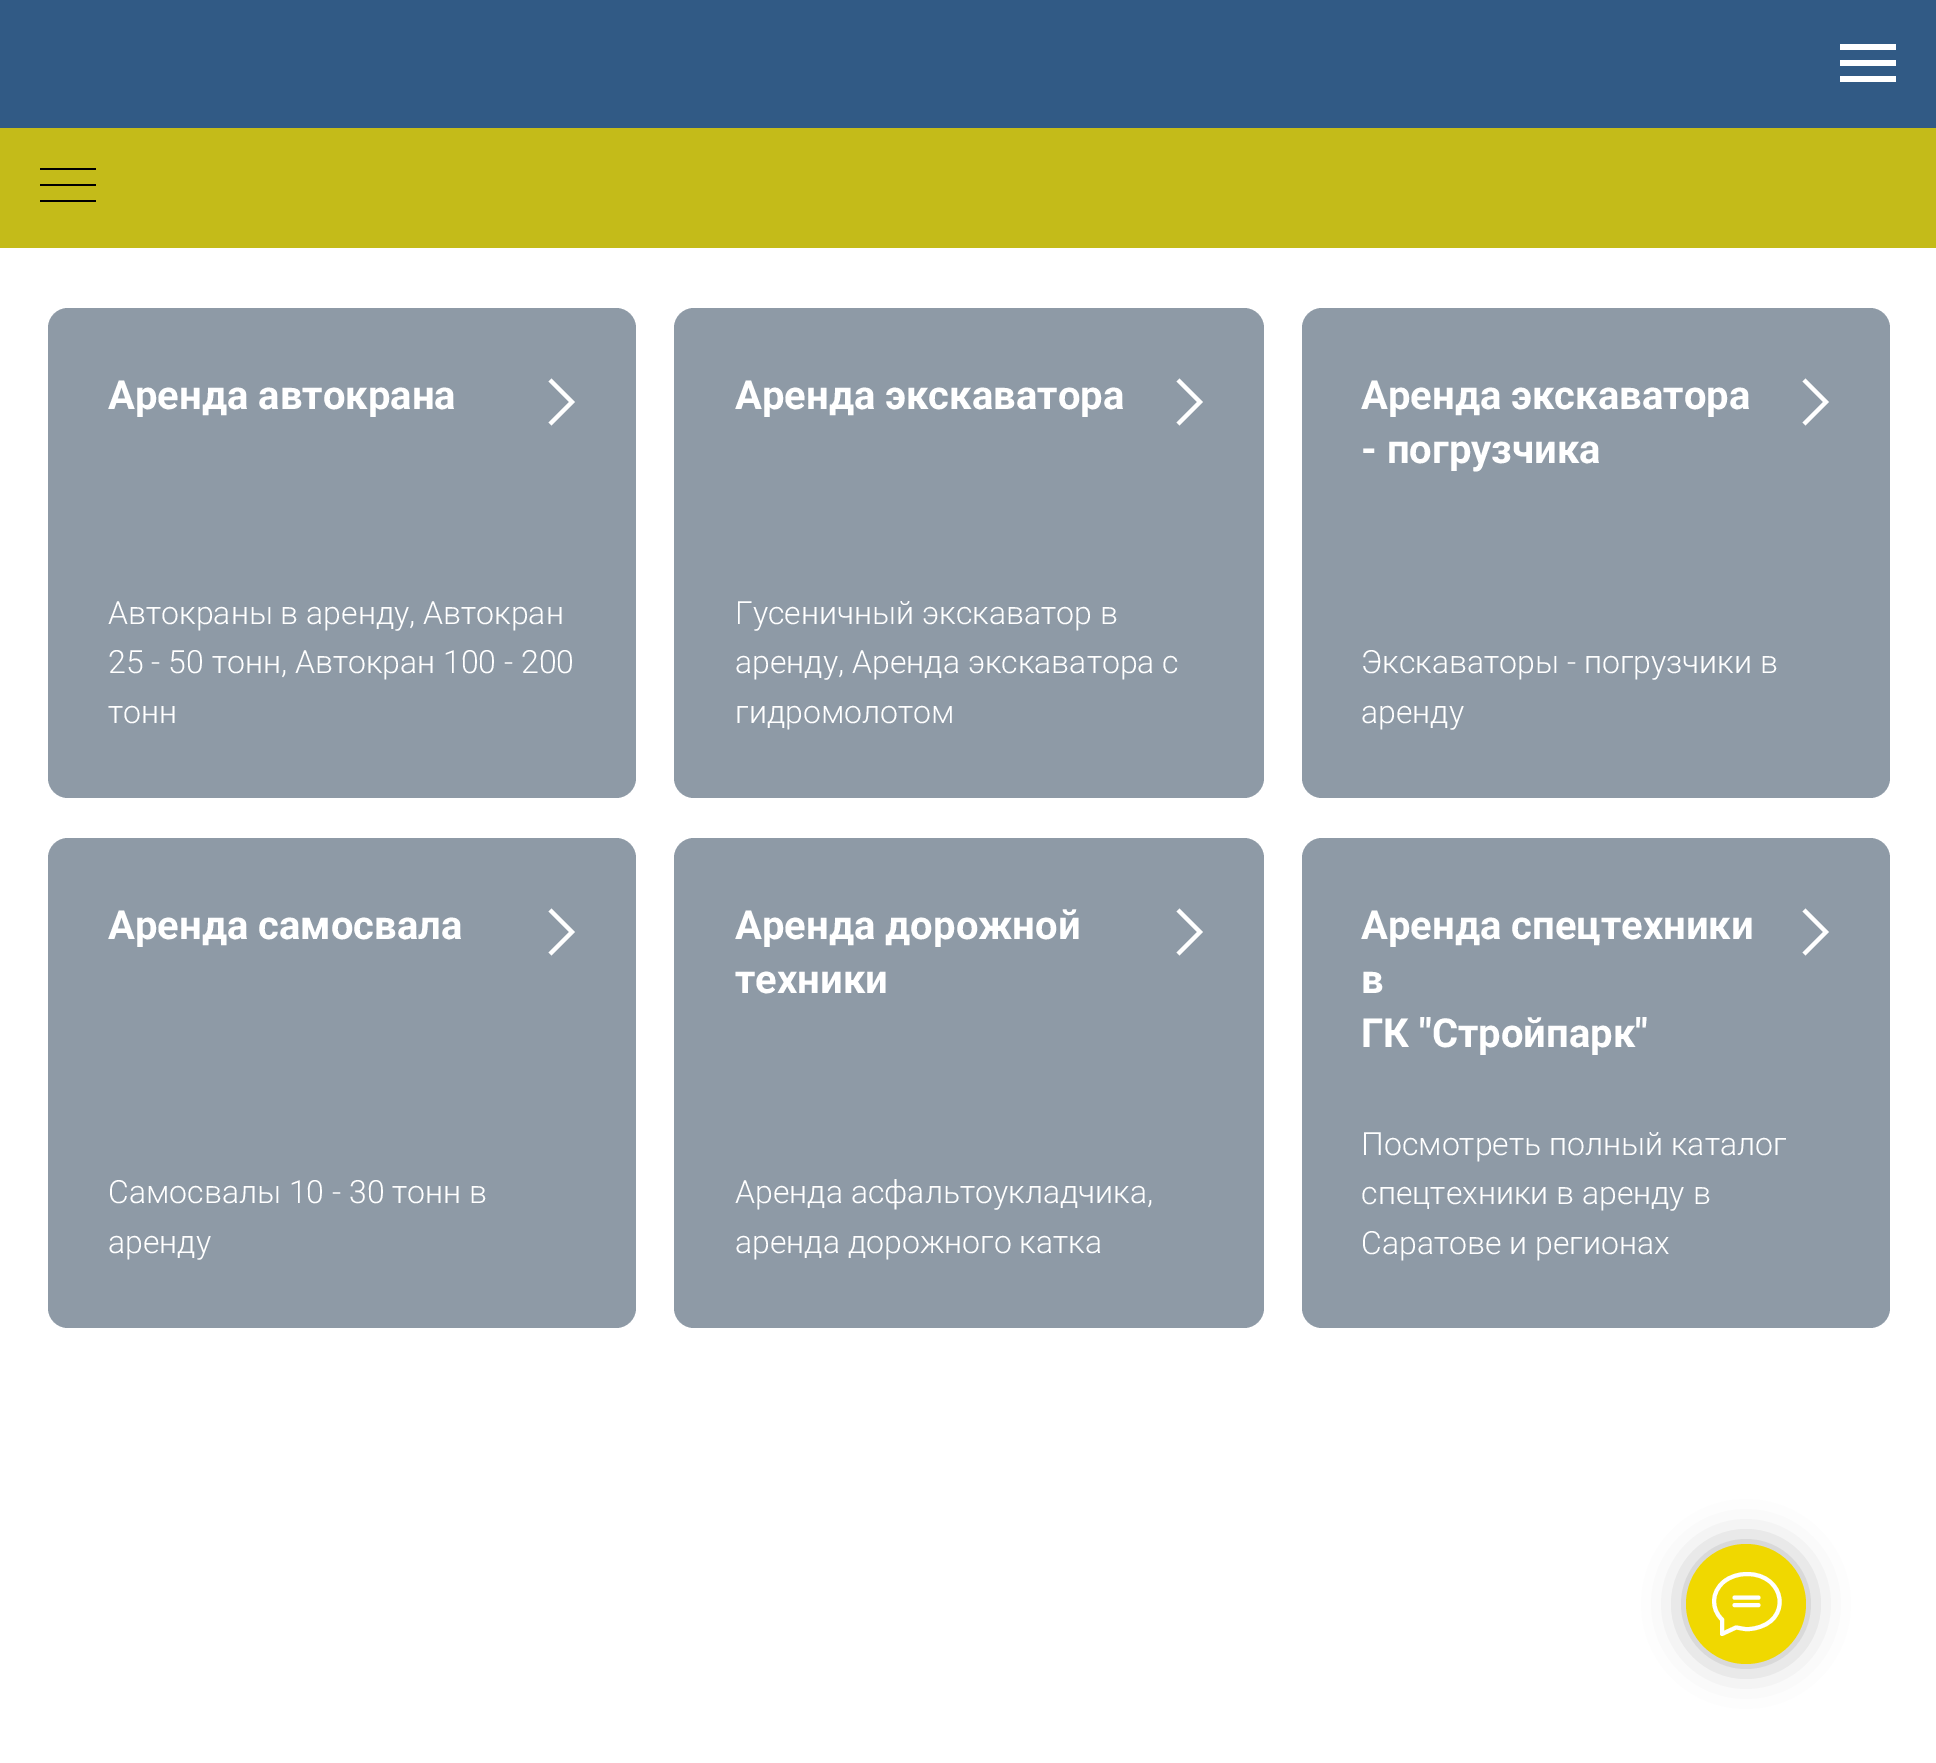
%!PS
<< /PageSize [1936 1763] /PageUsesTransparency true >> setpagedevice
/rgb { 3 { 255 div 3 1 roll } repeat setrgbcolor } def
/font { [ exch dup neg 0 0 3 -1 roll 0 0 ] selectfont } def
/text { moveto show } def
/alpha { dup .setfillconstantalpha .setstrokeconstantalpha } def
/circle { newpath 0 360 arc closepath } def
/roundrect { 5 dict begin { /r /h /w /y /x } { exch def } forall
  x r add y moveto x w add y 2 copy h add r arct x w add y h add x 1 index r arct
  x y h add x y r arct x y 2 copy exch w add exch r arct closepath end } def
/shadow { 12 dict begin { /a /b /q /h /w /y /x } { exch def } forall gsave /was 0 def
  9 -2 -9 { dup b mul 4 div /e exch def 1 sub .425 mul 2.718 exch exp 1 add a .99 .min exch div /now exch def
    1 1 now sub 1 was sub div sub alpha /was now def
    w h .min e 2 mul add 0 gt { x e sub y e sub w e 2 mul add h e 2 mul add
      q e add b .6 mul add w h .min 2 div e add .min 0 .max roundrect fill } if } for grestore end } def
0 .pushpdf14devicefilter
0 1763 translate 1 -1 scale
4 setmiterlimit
255 255 255 rgb
0 0 1936 1763 rectfill
49 90 133 rgb
0 0 1936 128 rectfill
255 255 255 rgb
1840 44 56 6 rectfill
1840 60 56 6 rectfill
1840 76 56 6 rectfill
196 187 25 rgb
0 128 1936 120 rectfill
0 0 0 rgb
40 168 56 2 rectfill
40 184 56 2 rectfill
40 200 56 2 rectfill
142 154 166 rgb
48 308 588 490 20 roundrect fill
255 255 255 rgb
4 setlinewidth
550 380 moveto 22 22 rlineto -22 22 rlineto stroke
142 154 166 rgb
674 308 590 490 20 roundrect fill
255 255 255 rgb
1178 380 moveto 22 22 rlineto -22 22 rlineto stroke
142 154 166 rgb
1302 308 588 490 20 roundrect fill
255 255 255 rgb
1804 380 moveto 22 22 rlineto -22 22 rlineto stroke
142 154 166 rgb
48 838 588 490 20 roundrect fill
255 255 255 rgb
550 910 moveto 22 22 rlineto -22 22 rlineto stroke
142 154 166 rgb
674 838 590 490 20 roundrect fill
255 255 255 rgb
1178 910 moveto 22 22 rlineto -22 22 rlineto stroke
142 154 166 rgb
1302 838 588 490 20 roundrect fill
255 255 255 rgb
1804 910 moveto 22 22 rlineto -22 22 rlineto stroke
0 0 0 rgb
1686 1544 120 120 60 20 0.3 shadow
240 216 0 rgb
1746 1604 60 circle fill
255 255 255 rgb
1 setlinecap
1 setlinejoin
1734.5 1597.5 moveto 24 0 rlineto 1734.5 1605 moveto 24 0 rlineto 1721.5 1619 moveto -10.5 -10.5 -10 -27 2 -37 rcurveto 6.5 -5.5 15 -8 23.5 -8 rcurveto 39 0 45.5 48 6.5 54.5 rcurveto -8.5 1.5 -10 0 -17.5 -1 rcurveto -14 6.5 rlineto 0 -14.5 rlineto closepath stroke
/Roboto-Bold 40 font
(Аренда автокрана) 108 409 text
/Roboto-Light 32 font
(Автокраны в аренду, Автокран) 108 624 text
(25 - 50 тонн, Автокран 100 - 200) 108 673 text
(тонн) 108 723 text
/Roboto-Bold 40 font
(Аренда экскаватора) 735 409 text
/Roboto-Light 32 font
(Гусеничный экскаватор в) 735 624 text
(аренду, Аренда экскаватора с) 735 673 text
(гидромолотом) 735 723 text
/Roboto-Bold 40 font
(Аренда экскаватора) 1361 409 text
(- погрузчика) 1361 463 text
/Roboto-Light 32 font
(Экскаваторы - погрузчики в) 1361 673 text
(аренду) 1361 723 text
/Roboto-Bold 40 font
(Аренда самосвала) 108 939 text
/Roboto-Light 32 font
(Самосвалы 10 - 30 тонн в) 108 1203 text
(аренду) 108 1253 text
/Roboto-Bold 40 font
(Аренда дорожной) 735 939 text
(техники) 735 993 text
/Roboto-Light 32 font
(Аренда асфальтоукладчика,) 735 1203 text
(аренда дорожного катка) 735 1253 text
/Roboto-Bold 40 font
(Аренда спецтехники) 1361 939 text
(в) 1361 993 text
(ГК "Стройпарк") 1361 1047 text
/Roboto-Light 32 font
(Посмотреть полный каталог) 1361 1155 text
(спецтехники в аренду в) 1361 1204 text
(Саратове и регионах) 1361 1254 text
.poppdf14devicefilter showpage
